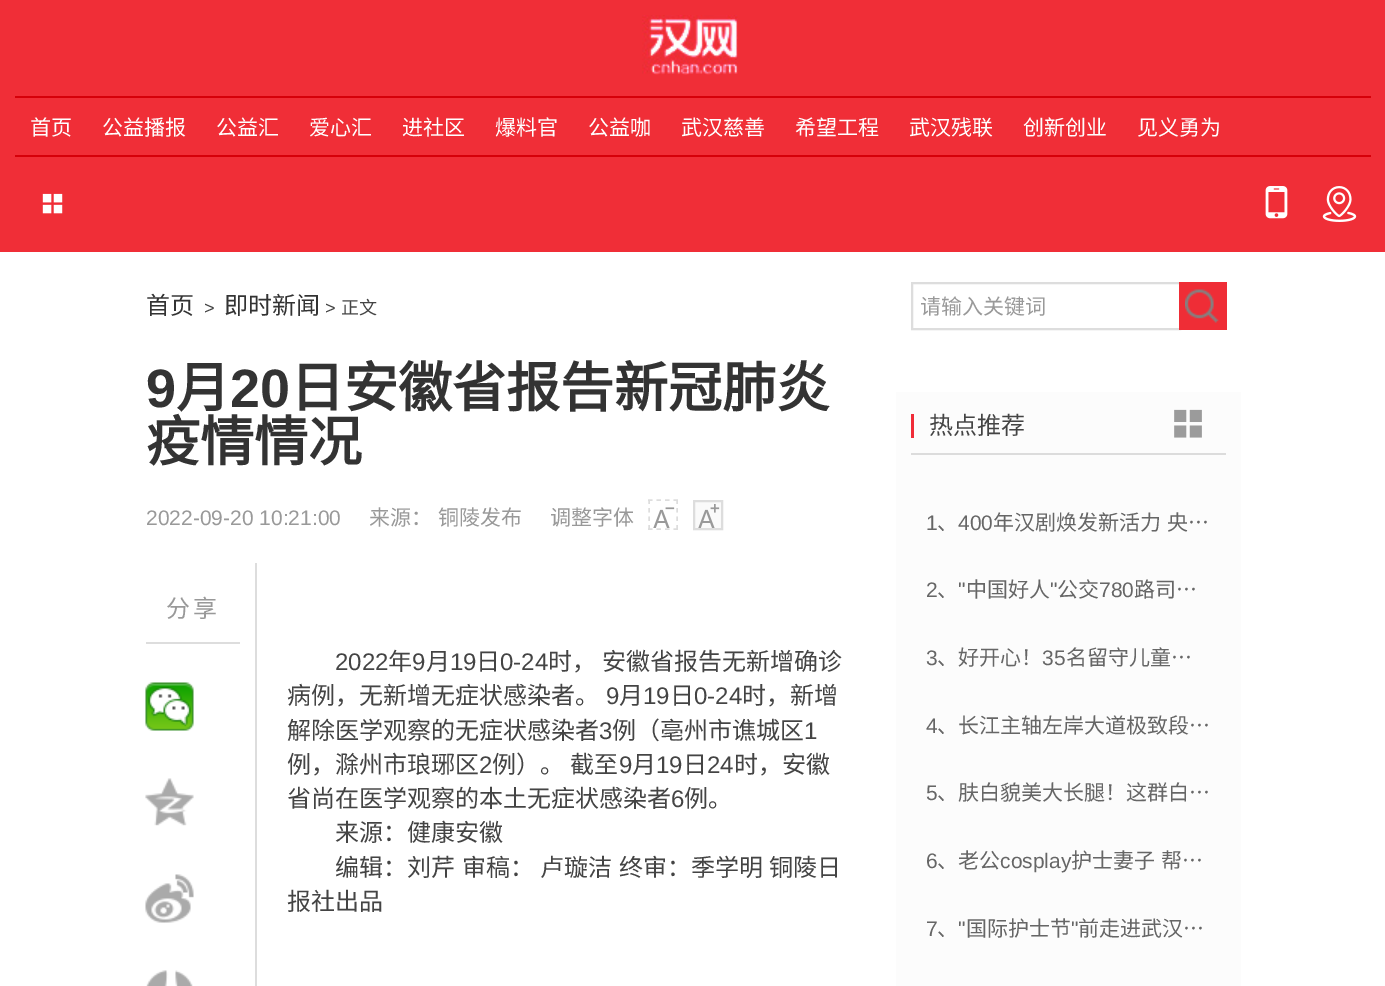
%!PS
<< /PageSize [1385 986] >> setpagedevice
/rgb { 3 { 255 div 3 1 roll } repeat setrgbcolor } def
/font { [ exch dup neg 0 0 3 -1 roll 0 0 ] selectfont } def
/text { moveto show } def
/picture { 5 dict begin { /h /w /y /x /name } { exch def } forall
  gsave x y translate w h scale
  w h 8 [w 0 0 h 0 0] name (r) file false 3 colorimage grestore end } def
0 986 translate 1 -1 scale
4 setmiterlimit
255 255 255 rgb
0 0 1385 986 rectfill
240 46 55 rgb
0 0 1385 252 rectfill
(img_01.rgb) 642 15 96 60 picture
214 0 9 rgb
15 96 1356 2 rectfill
15 155 1356 2 rectfill
(img_02.rgb) 42 193 21 21 picture
(img_03.rgb) 1265 186 23 33 picture
(img_04.rgb) 1322 186 35 36 picture
221 221 221 rgb
2 setlinewidth
912 283 268 46 rectstroke
239 45 54 rgb
1179 282 48 48 rectfill
(img_05.rgb) 1185 289 34 34 picture
221 221 221 rgb
1.5 setlinewidth
[4.5 4] 0 setdash
648 500 moveto 30 0 rlineto 677 499.5 moveto 0 30 rlineto 648 529 moveto 30 0 rlineto 649 499.5 moveto 0 30 rlineto stroke
(img_06.rgb) 653 507 22 21 picture
250 250 250 rgb
694 501 moveto 28 0 rlineto 0 28 rlineto -28 0 rlineto closepath gsave fill grestore
221 221 221 rgb
2 setlinewidth
[] 0 setdash
stroke
(img_07.rgb) 698 504 22 24 picture
146 642 94 2 rectfill
(img_08.rgb) 145 682 49 49 picture
(img_09.rgb) 145 778 49 48 picture
(img_10.rgb) 145 874 49 49 picture
(img_11.rgb) 146 970 47 16 picture
255 563 2 423 rectfill
252 252 252 rgb
896 392 345 594 rectfill
220 220 220 rgb
911 453 315 2 rectfill
240 44 56 rgb
911 414 3 24 rectfill
(img_12.rgb) 1174 409 28 29 picture
/NotoSansCJKSC-Regular 21 font
255 255 255 rgb
(首页) 30 135 text
(公益播报) 102 135 text
(公益汇) 216 135 text
(爱心汇) 309 135 text
(进社区) 402 135 text
(爆料官) 495 135 text
(公益咖) 588 135 text
(武汉慈善) 681 135 text
(希望工程) 795 135 text
(武汉残联) 909 135 text
(创新创业) 1023 135 text
(见义勇为) 1137 135 text
/NotoSansCJKSC-Regular 24 font
51 51 51 rgb
(首页) 146 314 text
/LiberationSans-Regular 18 font
68 68 68 rgb
(>) 204 314 text
/NotoSansCJKSC-Regular 24 font
51 51 51 rgb
(即时新闻) 224 314 text
/LiberationSans-Regular 18 font
68 68 68 rgb
(>) 325 314 text
/NotoSansCJKSC-Regular 18 font
(正文) 341 314 text
/NotoSansCJKSC-Regular 21 font
153 153 153 rgb
(请输入关键词) 920 314 text
/LiberationSans-Bold 54 font
51 51 51 rgb
(9) 146 407 text
/NotoSansCJKSC-Bold 54 font
(月) 176 407 text
/LiberationSans-Bold 54 font
(20) 230 407 text
/NotoSansCJKSC-Bold 54 font
(日安徽省报告新冠肺炎) 290 407 text
(疫情情况) 146 461 text
/LiberationSans-Regular 21 font
153 153 153 rgb
(2022-09-20 10:21:00) 146 525 text
/NotoSansCJKSC-Regular 21 font
369 525 moveto 1 0 32 (来源： 铜陵发布) widthshow
(调整字体) 550 525 text
/NotoSansCJKSC-Regular 24 font
166 617 moveto 3 0 (分享) ashow
/LiberationSans-Regular 24 font
68 68 68 rgb
(2022) 335 670 text
/NotoSansCJKSC-Regular 24 font
(年) 388 670 text
/LiberationSans-Regular 24 font
(9) 412 670 text
/NotoSansCJKSC-Regular 24 font
(月) 426 670 text
/LiberationSans-Regular 24 font
(19) 450 670 text
/NotoSansCJKSC-Regular 24 font
(日) 476 670 text
/LiberationSans-Regular 24 font
(0-24) 500 670 text
/NotoSansCJKSC-Regular 24 font
548 670 moveto 1 0 32 (时， 安徽省报告无新增确诊) widthshow
(病例，无新增无症状感染者。) 287 704 text
/LiberationSans-Regular 24 font
(9) 606 704 text
/NotoSansCJKSC-Regular 24 font
(月) 619 704 text
/LiberationSans-Regular 24 font
(19) 643 704 text
/NotoSansCJKSC-Regular 24 font
(日) 670 704 text
/LiberationSans-Regular 24 font
(0-24) 694 704 text
/NotoSansCJKSC-Regular 24 font
(时，新增) 742 704 text
(解除医学观察的无症状感染者) 287 739 text
/LiberationSans-Regular 24 font
(3) 599 739 text
/NotoSansCJKSC-Regular 24 font
(例（亳州市谯城区) 612 739 text
/LiberationSans-Regular 24 font
(1) 804 739 text
/NotoSansCJKSC-Regular 24 font
(例，滁州市琅琊区) 287 773 text
/LiberationSans-Regular 24 font
(2) 479 773 text
/NotoSansCJKSC-Regular 24 font
492 773 moveto 1 0 32 (例）。 截至) widthshow
/LiberationSans-Regular 24 font
(9) 619 773 text
/NotoSansCJKSC-Regular 24 font
(月) 632 773 text
/LiberationSans-Regular 24 font
(19) 656 773 text
/NotoSansCJKSC-Regular 24 font
(日) 683 773 text
/LiberationSans-Regular 24 font
(24) 707 773 text
/NotoSansCJKSC-Regular 24 font
(时，安徽) 734 773 text
(省尚在医学观察的本土无症状感染者) 287 807 text
/LiberationSans-Regular 24 font
(6) 671 807 text
/NotoSansCJKSC-Regular 24 font
(例。) 684 807 text
(来源：健康安徽) 335 841 text
(编辑：刘芹) 335 876 text
462 876 moveto 1 0 32 (审稿： 卢璇洁) widthshow
619 876 moveto 1 0 32 (终审：季学明 铜陵日) widthshow
(报社出品) 287 910 text
(热点推荐) 929 434 text
/LiberationSans-Regular 21 font
102 102 102 rgb
(1) 926 530 text
/NotoSansCJKSC-Regular 21 font
(、) 937 530 text
/LiberationSans-Regular 21 font
(400) 958 530 text
/NotoSansCJKSC-Regular 21 font
993 530 moveto 1 0 32 (年汉剧焕发新活力 央…) widthshow
/LiberationSans-Regular 21 font
(2) 926 597 text
/NotoSansCJKSC-Regular 21 font
(、) 937 597 text
/LiberationSans-Regular 21 font
(") 958 597 text
/NotoSansCJKSC-Regular 21 font
(中国好人) 966 597 text
/LiberationSans-Regular 21 font
(") 1050 597 text
/NotoSansCJKSC-Regular 21 font
(公交) 1057 597 text
/LiberationSans-Regular 21 font
(780) 1099 597 text
/NotoSansCJKSC-Regular 21 font
(路司…) 1134 597 text
/LiberationSans-Regular 21 font
(3) 926 665 text
/NotoSansCJKSC-Regular 21 font
(、好开心！) 937 665 text
/LiberationSans-Regular 21 font
(35) 1042 665 text
/NotoSansCJKSC-Regular 21 font
(名留守儿童…) 1066 665 text
/LiberationSans-Regular 21 font
(4) 926 733 text
/NotoSansCJKSC-Regular 21 font
(、长江主轴左岸大道极致段…) 937 733 text
/LiberationSans-Regular 21 font
(5) 926 800 text
/NotoSansCJKSC-Regular 21 font
(、肤白貌美大长腿！这群白…) 937 800 text
/LiberationSans-Regular 21 font
(6) 926 868 text
/NotoSansCJKSC-Regular 21 font
(、老公) 937 868 text
/LiberationSans-Regular 21 font
(cosplay) 1000 868 text
/NotoSansCJKSC-Regular 21 font
1071 868 moveto 1 0 32 (护士妻子 帮…) widthshow
/LiberationSans-Regular 21 font
(7) 926 936 text
(") 958 936 text
/NotoSansCJKSC-Regular 21 font
(国际护士节) 966 936 text
/LiberationSans-Regular 21 font
(") 1071 936 text
/NotoSansCJKSC-Regular 21 font
1078 936 moveto 1 0 32 (前走进武汉…) widthshow
(、) 937 936 text
showpage
